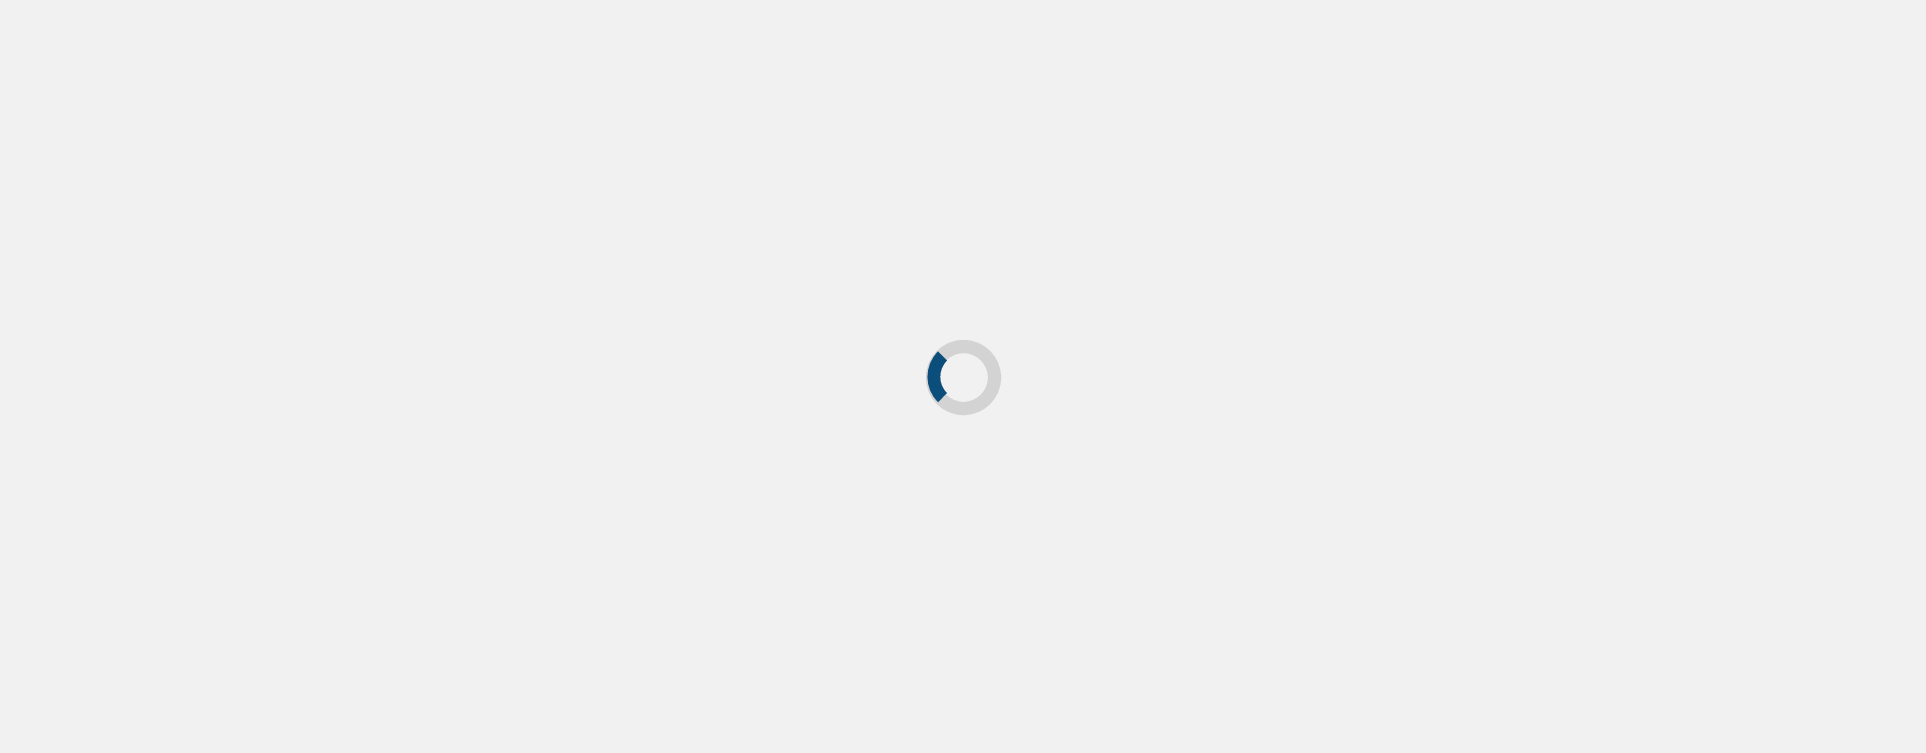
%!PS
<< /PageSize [1926 753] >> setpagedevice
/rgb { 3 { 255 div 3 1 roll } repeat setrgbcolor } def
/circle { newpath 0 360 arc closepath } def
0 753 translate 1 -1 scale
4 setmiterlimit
241 241 241 rgb
0 0 1926 753 rectfill
211 211 211 rgb
13 setlinewidth
963.5 377.5 31 circle stroke
12 78 123 rgb
12.5 setlinewidth
942.5 397.5 moveto -11.5 -11 -11.5 -30 0 -41.5 rcurveto stroke
showpage
